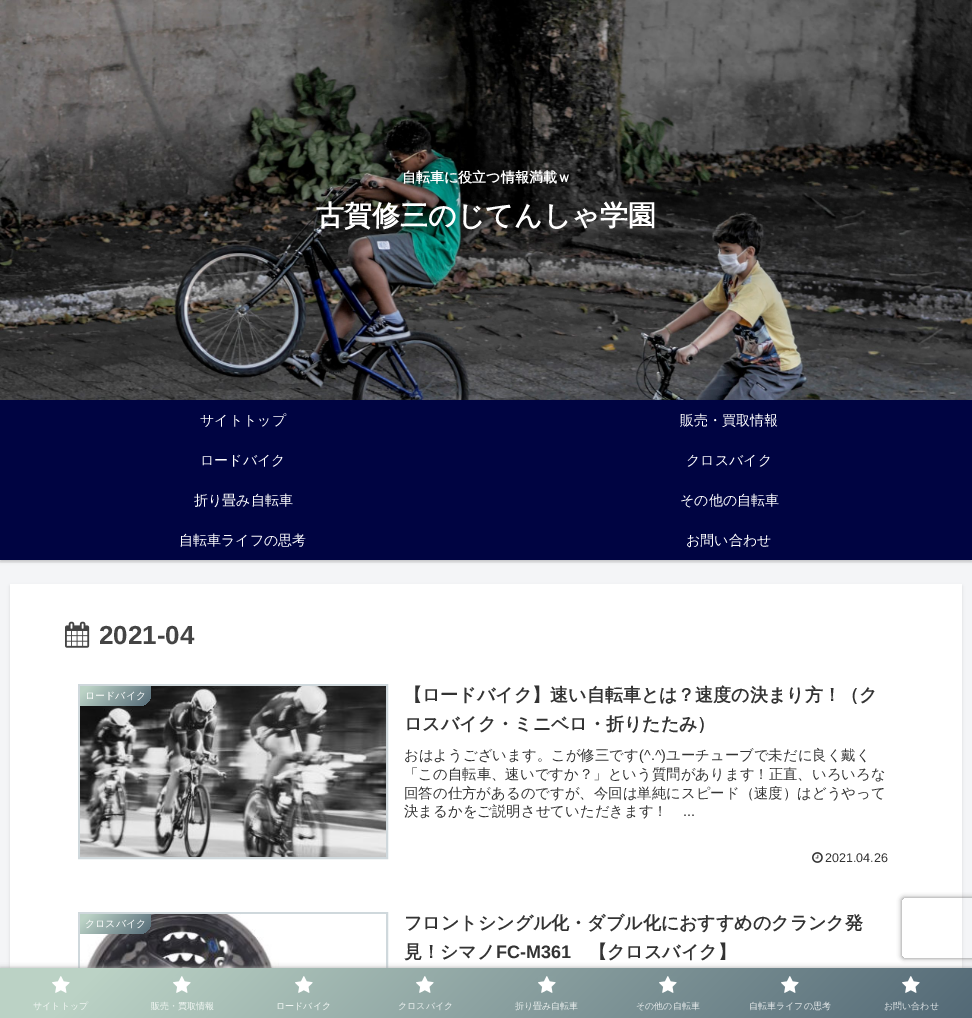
%!PS
<< /PageSize [972 1018] /PageUsesTransparency true >> setpagedevice
/rgb { 3 { 255 div 3 1 roll } repeat setrgbcolor } def
/font { [ exch dup neg 0 0 3 -1 roll 0 0 ] selectfont } def
/text { moveto show } def
/alpha { dup .setfillconstantalpha .setstrokeconstantalpha } def
/roundrect { 5 dict begin { /r /h /w /y /x } { exch def } forall
  x r add y moveto x w add y 2 copy h add r arct x w add y h add x 1 index r arct
  x y h add x y r arct x y 2 copy exch w add exch r arct closepath end } def
/shadow { 12 dict begin { /a /b /q /h /w /y /x } { exch def } forall gsave /was 0 def
  9 -2 -9 { dup b mul 4 div /e exch def 1 sub .425 mul 2.718 exch exp 1 add a .99 .min exch div /now exch def
    1 1 now sub 1 was sub div sub alpha /was now def
    w h .min e 2 mul add 0 gt { x e sub y e sub w e 2 mul add h e 2 mul add
      q e add b .6 mul add w h .min 2 div e add .min 0 .max roundrect fill } if } for grestore end } def
/picture { 5 dict begin { /h /w /y /x /name } { exch def } forall
  gsave x y translate w h scale
  w h 8 [w 0 0 h 0 0] name (r) file false 3 colorimage grestore end } def
0 .pushpdf14devicefilter
0 1018 translate 1 -1 scale
4 setmiterlimit
244 245 247 rgb
0 0 972 1018 rectfill
0 0 0 rgb
0 2 972 560 0 1.5 0.1 shadow
0 4 66 rgb
0 400 972 160 rectfill
(img_01.rgb) 0 0 972 400 picture
gsave
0 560 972 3 rectclip
0 0 0 rgb
0 402 972 160 0 1.5 0.1 shadow
grestore
0 0 0 rgb
10 586 952 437 0 1.5 0.1 shadow
255 255 255 rgb
10 584 952 384 rectfill
(img_02.rgb) 65 621 25 27 picture
207 216 220 rgb
2 setlinewidth
79 685 308 173 rectstroke
(img_03.rgb) 80 686 306 171 picture
gsave 80 686 moveto 71 0 rlineto 0 8 rlineto 0 6.5 -5.5 12 -12 12 rcurveto -59 0 rlineto closepath clip newpath
<< /ShadingType 2 /ColorSpace /DeviceRGB /Coords [93 673 138 719] /Extend [true true] /Function << /FunctionType 3 /Domain [0 1] /Functions [<< /FunctionType 2 /Domain [0 1] /C0 [0.733 0.824 0.773] /C1 [0.733 0.824 0.773] /N 1 >> << /FunctionType 2 /Domain [0 1] /C0 [0.733 0.824 0.773] /C1 [0.325 0.412 0.463] /N 1 >>] /Bounds [0.1] /Encode [0 1 0 1] >> >> shfill grestore
(img_04.rgb) 812 852 11 11 picture
79 913 308 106 rectstroke
(img_05.rgb) 80 914 306 54 picture
gsave 80 914 moveto 71 0 rlineto 0 8 rlineto 0 6.5 -5.5 12 -12 12 rcurveto -59 0 rlineto closepath clip newpath
<< /ShadingType 2 /ColorSpace /DeviceRGB /Coords [93 901 138 947] /Extend [true true] /Function << /FunctionType 3 /Domain [0 1] /Functions [<< /FunctionType 2 /Domain [0 1] /C0 [0.733 0.824 0.773] /C1 [0.733 0.824 0.773] /N 1 >> << /FunctionType 2 /Domain [0 1] /C0 [0.733 0.824 0.773] /C1 [0.325 0.412 0.463] /N 1 >>] /Bounds [0.1] /Encode [0 1 0 1] >> >> shfill grestore
169 169 169 rgb
0 968 972 50 0 2.5 1 shadow
gsave 0 968 moveto 972 0 rlineto 0 50 rlineto -972 0 rlineto closepath clip newpath
<< /ShadingType 2 /ColorSpace /DeviceRGB /Coords [230 738 742 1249] /Extend [true true] /Function << /FunctionType 3 /Domain [0 1] /Functions [<< /FunctionType 2 /Domain [0 1] /C0 [0.733 0.824 0.773] /C1 [0.733 0.824 0.773] /N 1 >> << /FunctionType 2 /Domain [0 1] /C0 [0.733 0.824 0.773] /C1 [0.325 0.412 0.463] /N 1 >>] /Bounds [0.1] /Encode [0 1 0 1] >> >> shfill grestore
(img_06.rgb) 52 976 18 17 picture
(img_07.rgb) 173 976 18 17 picture
(img_08.rgb) 295 976 18 17 picture
(img_09.rgb) 416 976 18 17 picture
(img_10.rgb) 538 976 18 17 picture
(img_11.rgb) 659 976 18 17 picture
(img_12.rgb) 781 976 18 17 picture
(img_13.rgb) 902 976 18 17 picture
gsave
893 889 moveto 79 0 rlineto 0 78 rlineto -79 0 rlineto closepath 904 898 moveto 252 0 rlineto 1 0 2 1 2 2 rcurveto 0 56 rlineto 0 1 -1 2 -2 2 rcurveto -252 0 rlineto -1 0 -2 -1 -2 -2 rcurveto 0 -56 rlineto 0 -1 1 -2 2 -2 rcurveto closepath eoclip newpath
128 128 128 rgb
902 898 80 60 2 2.5 1 shadow
grestore
/WenQuanYiZenHei-Bold 14 font
255 255 255 rgb
(自転車に役立つ情報満載ｗ) 402 182 text
/WenQuanYiZenHei-Bold 28 font
(古賀修三のじてんしゃ学園) 316 225 text
/WenQuanYiZenHei-Medium 14 font
(サイトトップ) 200 425 text
(販売・買取情報) 680 425 text
(ロードバイク) 200 465 text
(クロスバイク) 686 465 text
(折り畳み自転車) 194 505 text
(その他の自転車) 680 505 text
(自転車ライフの思考) 179 545 text
(お問い合わせ) 686 545 text
/LiberationSans-Bold 26 font
68 68 68 rgb
(2021-04) 99 644 text
/WenQuanYiZenHei-Medium 10 font
255 255 255 rgb
(ロードバイク) 85 699 text
/WenQuanYiZenHei-Bold 18 font
51 51 51 rgb
(【ロードバイク】速い自転車とは？速度の決まり方！（ク) 404 701 text
(ロスバイク・ミニベロ・折りたたみ）) 404 730 text
/WenQuanYiZenHei-Medium 14.4 font
(おはようございます。こが修三です) 404 760 text
/LiberationSans-Regular 14.4 font
(\(^.^\)) 639 760 text
/WenQuanYiZenHei-Medium 14.4 font
(ユーチューブで未だに良く戴く) 666 760 text
(「この自転車、速いですか？」という質問があります！正直、いろいろな) 404 779 text
(回答の仕方があるのですが、今回は単純にスピード（速度）はどうやって) 404 798 text
(決まるかをご説明させていただきます！) 404 816 text
/LiberationSans-Regular 14.4 font
(...) 683 816 text
/LiberationSans-Regular 12.5 font
(2021.04.26) 825 862 text
/WenQuanYiZenHei-Medium 10 font
255 255 255 rgb
(クロスバイク) 85 927 text
/WenQuanYiZenHei-Bold 18 font
51 51 51 rgb
(フロントシングル化・ダブル化におすすめのクランク発) 404 929 text
(見！シマノ) 404 958 text
/LiberationSans-Bold 18 font
(FC-M361) 496 958 text
/WenQuanYiZenHei-Bold 18 font
(【クロスバイク】) 589 958 text
/WenQuanYiZenHei-Medium 9 font
241 246 243 rgb
(サイトトップ) 33 1009 text
(販売・買取情報) 151 1009 text
(ロードバイク) 276 1009 text
233 238 237 rgb
(クロスバイク) 398 1009 text
(折り畳み自転車) 515 1009 text
228 232 233 rgb
(その他の自転車) 636 1009 text
(自転車ライフの思考) 749 1009 text
222 227 229 rgb
(お問い合わせ) 884 1009 text
.poppdf14devicefilter showpage
